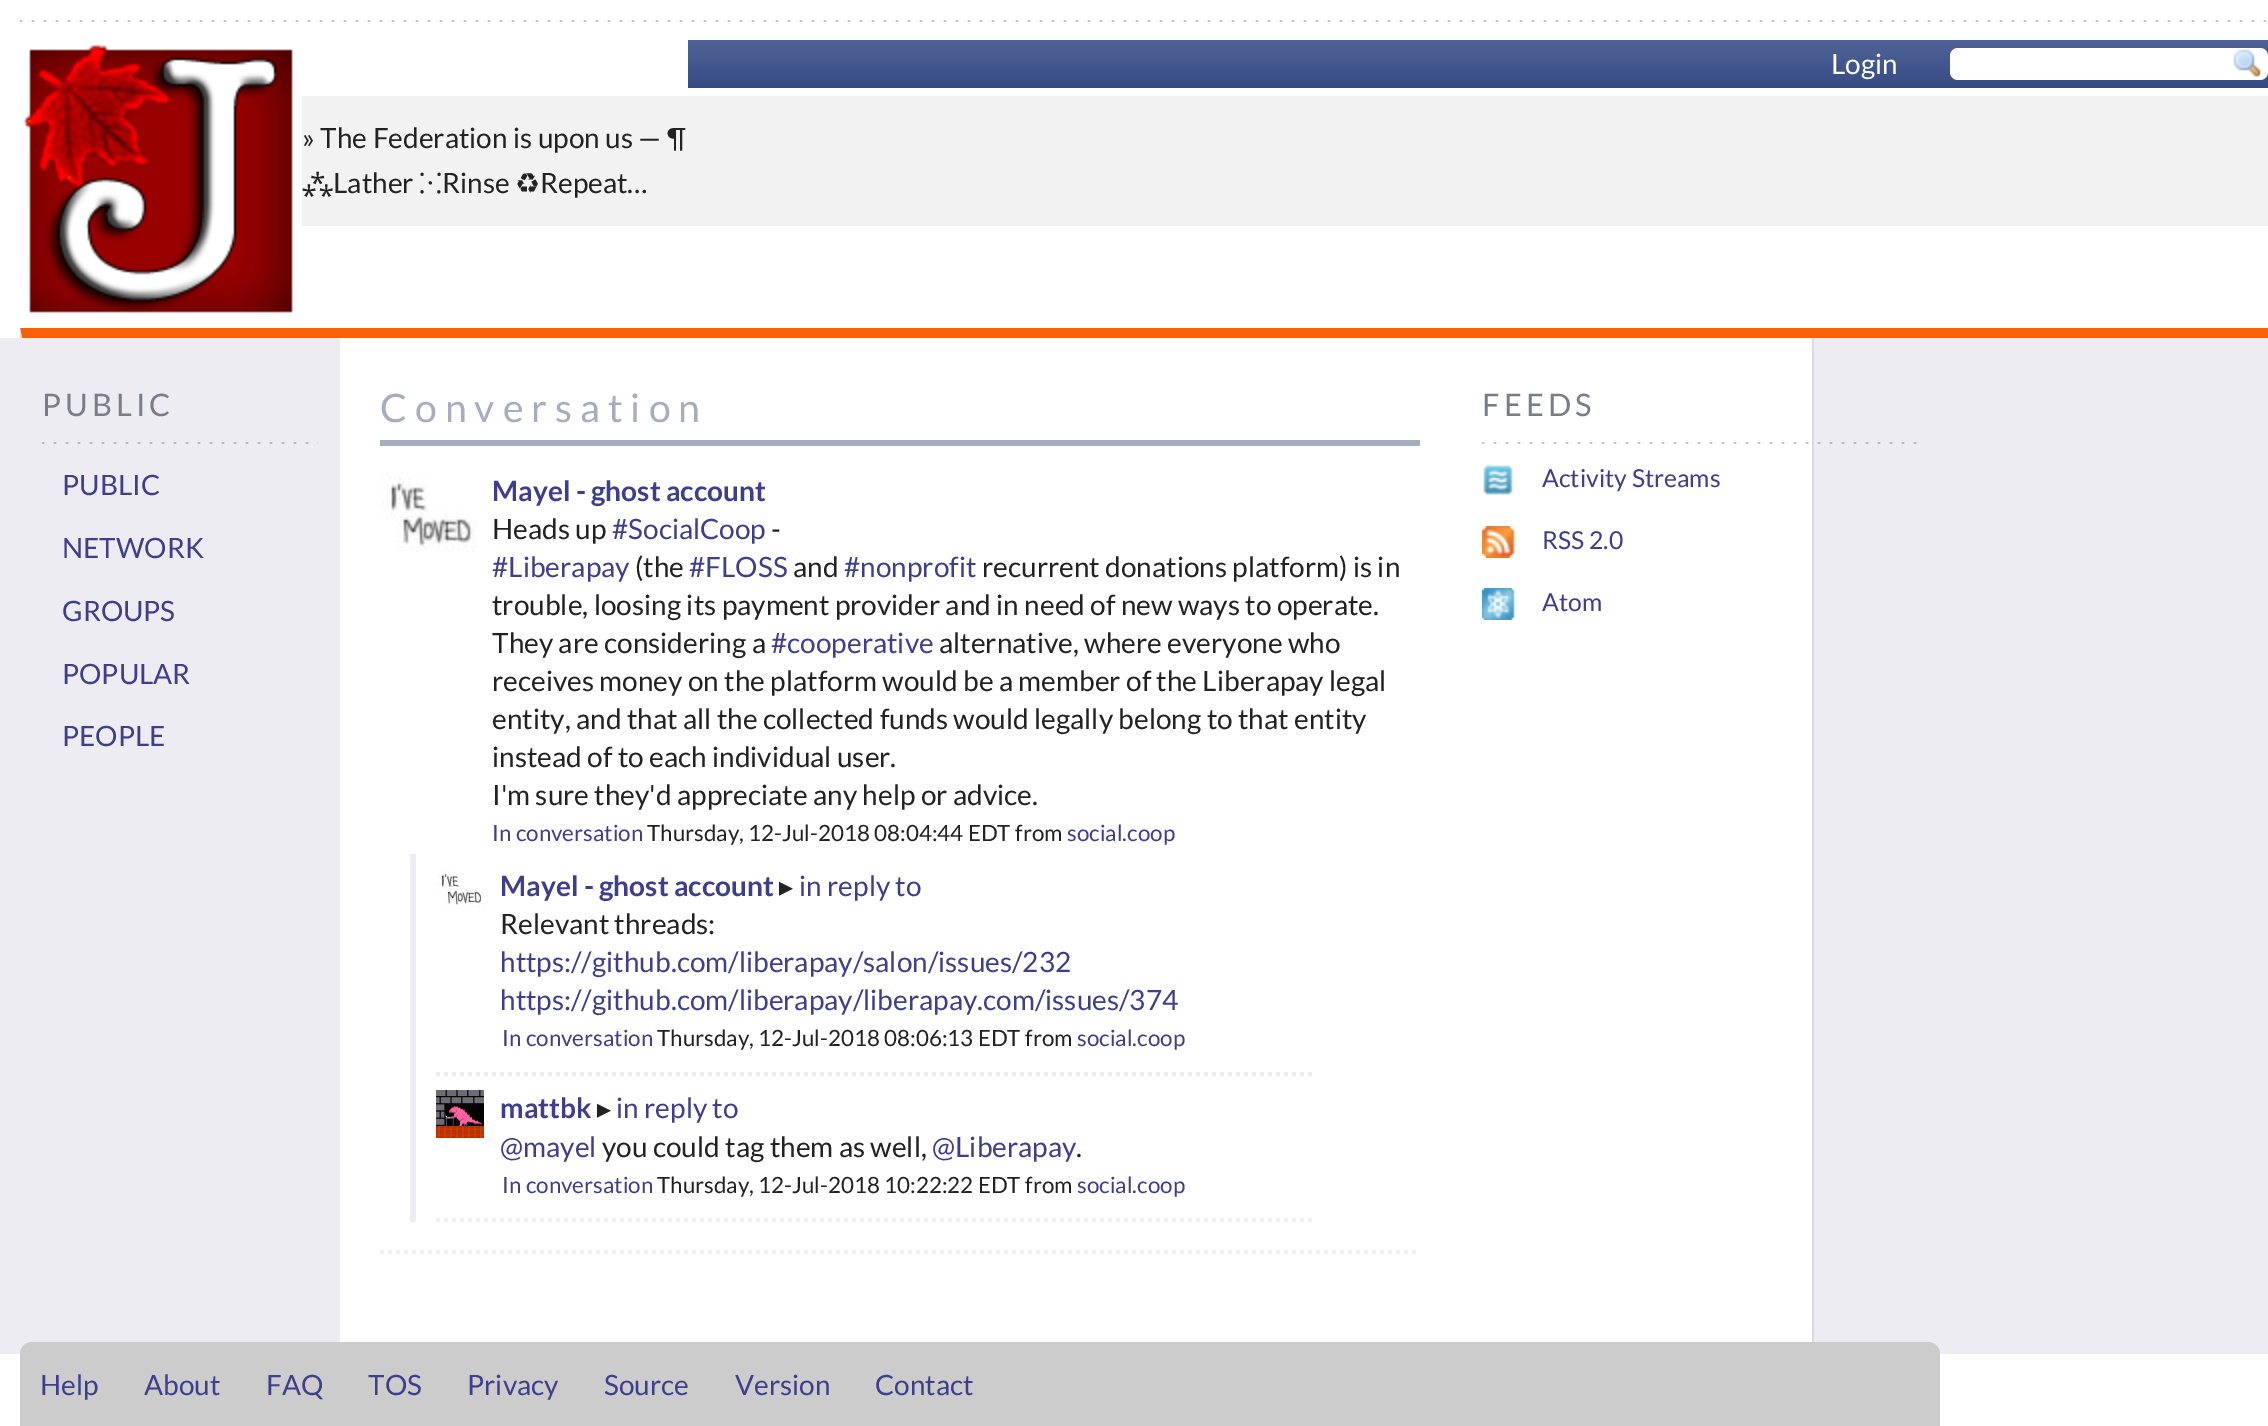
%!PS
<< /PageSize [2268 1426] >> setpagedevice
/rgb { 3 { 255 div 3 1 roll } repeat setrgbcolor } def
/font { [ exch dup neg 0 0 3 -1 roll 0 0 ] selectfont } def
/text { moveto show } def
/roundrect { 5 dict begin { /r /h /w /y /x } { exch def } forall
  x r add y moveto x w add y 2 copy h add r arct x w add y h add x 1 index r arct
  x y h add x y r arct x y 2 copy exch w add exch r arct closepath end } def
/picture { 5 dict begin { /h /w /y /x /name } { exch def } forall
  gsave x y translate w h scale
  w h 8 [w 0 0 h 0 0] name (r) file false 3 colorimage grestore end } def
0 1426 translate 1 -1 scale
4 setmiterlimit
255 255 255 rgb
0 0 2268 1426 rectfill
(img_01.rgb) 20 20 2247 2 picture
(img_02.rgb) 20 43 282 270 picture
gsave 688 40 moveto 1580 0 rlineto 0 48 rlineto -1580 0 rlineto closepath clip newpath
<< /ShadingType 2 /ColorSpace /DeviceRGB /Coords [1488 40 1488 88] /Extend [true true] /Function << /FunctionType 2 /Domain [0 1] /C0 [0.318 0.392 0.6] /C1 [0.212 0.29 0.518] /N 1 >> >> shfill grestore
1950 48 318 32 8 roundrect fill
(img_03.rgb) 2233 49 28 29 picture
242 242 242 rgb
302 96 1966 130 rectfill
251 97 4 rgb
20 328 moveto 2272 0 rlineto -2 10 rlineto -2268 0 rlineto closepath fill
216 218 230 rgb
20 1354 moveto 0 -1026 rlineto 2 10 rlineto 0 1016 rlineto closepath fill
236 236 242 rgb
1814 338 454 1016 rectfill
216 218 230 rgb
1812 338 2 1004 rectfill
236 236 242 rgb
0 338 340 1016 rectfill
(img_04.rgb) 42 442 276 2 picture
166 173 191 rgb
380 440 1040 6 rectfill
238 238 238 rgb
4 setlinewidth
[4 4] 0 setdash
380 1252 moveto 1040 0 rlineto stroke
(img_05.rgb) 380 472 96 80 picture
236 236 242 rgb
410 854 6 368 rectfill
238 238 238 rgb
436 1074 moveto 880 0 rlineto stroke
(img_06.rgb) 436 869 48 39 picture
436 1220 moveto 880 0 rlineto stroke
(img_07.rgb) 436 1090 48 48 picture
(img_08.rgb) 1482 442 435 2 picture
(img_09.rgb) 1483 465 30 30 picture
(img_10.rgb) 1482 526 33 32 picture
(img_11.rgb) 1482 588 33 32 picture
204 204 204 rgb
32 1342 moveto 1896 0 rlineto 6.5 0 12 5.5 12 12 rcurveto 0 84 rlineto -1920 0 rlineto 0 -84 rlineto 0 -6.5 5.5 -12 12 -12 rcurveto closepath fill
/Lato-Regular 28 font
255 255 255 rgb
(Login) 1831 74 text
34 34 34 rgb
(» The Federation is upon us — ¶) 302 148 text
/NotoSans-Regular 28 font
(⁂) 302 193 text
/Lato-Regular 28 font
(Lather) 333 193 text
/NotoSans-Regular 28 font
(⁙) 419 193 text
/Lato-Regular 28 font
(Rinse) 442 193 text
/DejaVuSans-Regular 28 font
(♻) 515 193 text
/Lato-Regular 28 font
(Repeat…) 540 193 text
/Lato-Regular 31 font
122 124 135 rgb
42 416 moveto 4 0 (PUBLIC) ashow
/Lato-Regular 28 font
62 62 140 rgb
(PUBLIC) 62 495 text
(NETWORK) 62 558 text
(GROUPS) 62 621 text
(POPULAR) 62 684 text
(PEOPLE) 62 746 text
/Lato-Regular 39.25 font
166 173 191 rgb
380 422 moveto 8 0 (Conversation) ashow
/Lato-Bold 28 font
62 62 140 rgb
(Mayel - ghost account) 492 501 text
/Lato-Regular 28 font
34 34 34 rgb
(Heads up) 492 539 text
62 62 140 rgb
(#SocialCoop) 612 539 text
34 34 34 rgb
(-) 771 539 text
62 62 140 rgb
(#Liberapay) 492 577 text
34 34 34 rgb
(\(the) 635 577 text
62 62 140 rgb
(#FLOSS) 689 577 text
34 34 34 rgb
(and) 793 577 text
62 62 140 rgb
(#nonprofit) 844 577 text
34 34 34 rgb
(recurrent donations platform\) is in) 982 577 text
(trouble, loosing its payment provider and in need of new ways to operate.) 492 615 text
(They are considering a) 492 653 text
62 62 140 rgb
(#cooperative) 771 653 text
34 34 34 rgb
(alternative, where everyone who) 939 653 text
(receives money on the platform would be a member of the Liberapay legal) 492 691 text
(entity, and that all the collected funds would legally belong to that entity) 492 729 text
(instead of to each individual user.) 492 767 text
(I'm sure they'd appreciate any help or advice.) 492 805 text
/Lato-Regular 22.4 font
62 62 140 rgb
(In conversation) 492 841 text
34 34 34 rgb
(Thursday, 12-Jul-2018 08:04:44 EDT) 647 841 text
(from) 1015 841 text
62 62 140 rgb
(social.coop) 1067 841 text
/Lato-Bold 28 font
(Mayel - ghost account) 500 896 text
/DejaVuSans-Regular 28 font
34 34 34 rgb
(▸) 779 896 text
/Lato-Regular 28 font
62 62 140 rgb
(in reply to) 799 896 text
34 34 34 rgb
(Relevant threads:) 500 934 text
62 62 140 rgb
(https://github.com/liberapay/salon/issues/232) 500 972 text
(https://github.com/liberapay/liberapay.com/issues/374) 500 1010 text
/Lato-Regular 22.4 font
(In conversation) 502 1046 text
34 34 34 rgb
(Thursday, 12-Jul-2018 08:06:13 EDT) 657 1046 text
(from) 1025 1046 text
62 62 140 rgb
(social.coop) 1077 1046 text
/Lato-Bold 28 font
(mattbk) 500 1118 text
/DejaVuSans-Regular 28 font
34 34 34 rgb
(▸) 597 1118 text
/Lato-Regular 28 font
62 62 140 rgb
(in reply to) 616 1118 text
(@mayel) 500 1157 text
34 34 34 rgb
(you could tag them as well,) 602 1157 text
62 62 140 rgb
(@Liberapay) 932 1157 text
34 34 34 rgb
(.) 1076 1157 text
/Lato-Regular 22.4 font
62 62 140 rgb
(In conversation) 502 1193 text
34 34 34 rgb
(Thursday, 12-Jul-2018 10:22:22 EDT) 657 1193 text
(from) 1025 1193 text
62 62 140 rgb
(social.coop) 1077 1193 text
/Lato-Regular 31 font
122 124 135 rgb
1482 416 moveto 4 0 (FEEDS) ashow
/Lato-Regular 24.75 font
62 62 140 rgb
(Activity Streams) 1542 487 text
(RSS 2.0) 1542 549 text
(Atom) 1542 611 text
/Lato-Regular 28 font
(Help) 40 1395 text
(About) 144 1395 text
(FAQ) 266 1395 text
(TOS) 368 1395 text
(Privacy) 467 1395 text
(Source) 604 1395 text
(Version) 735 1395 text
(Contact) 875 1395 text
showpage
